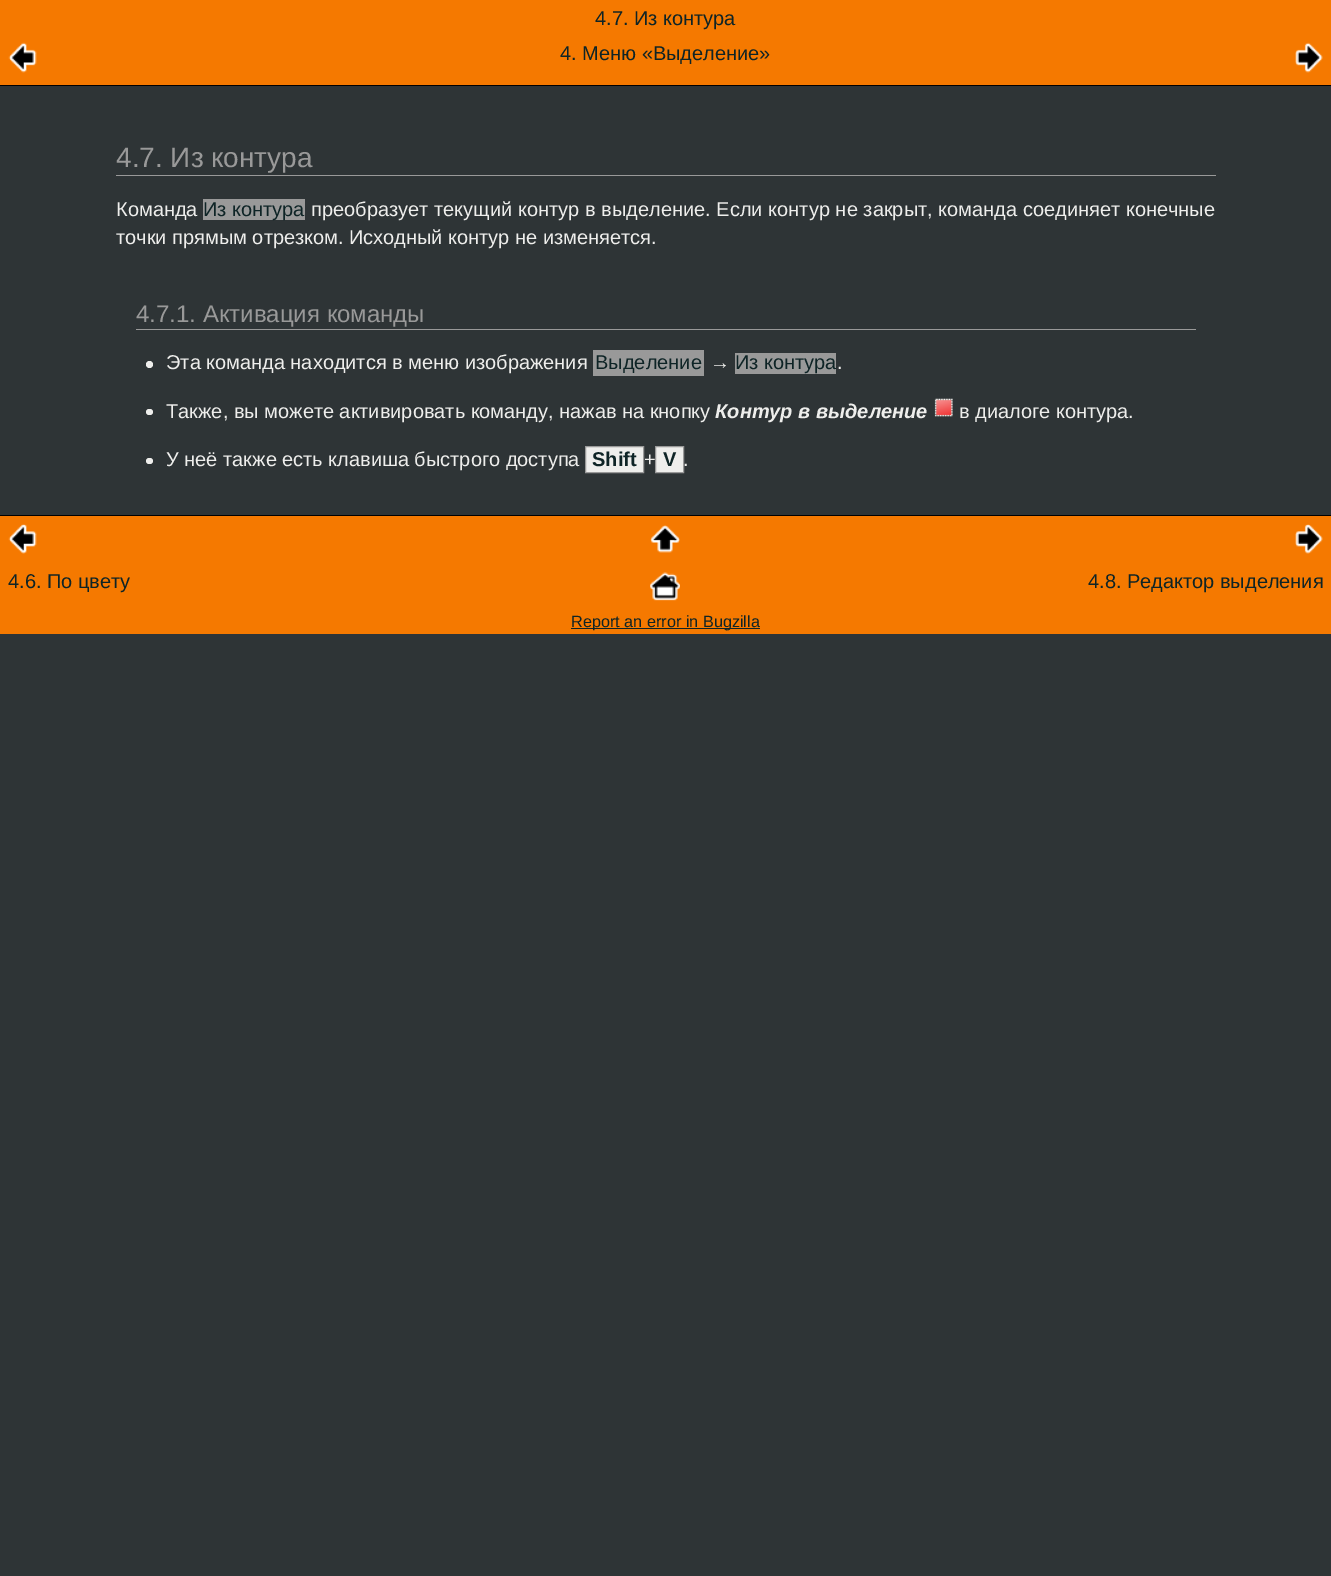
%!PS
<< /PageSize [1331 1576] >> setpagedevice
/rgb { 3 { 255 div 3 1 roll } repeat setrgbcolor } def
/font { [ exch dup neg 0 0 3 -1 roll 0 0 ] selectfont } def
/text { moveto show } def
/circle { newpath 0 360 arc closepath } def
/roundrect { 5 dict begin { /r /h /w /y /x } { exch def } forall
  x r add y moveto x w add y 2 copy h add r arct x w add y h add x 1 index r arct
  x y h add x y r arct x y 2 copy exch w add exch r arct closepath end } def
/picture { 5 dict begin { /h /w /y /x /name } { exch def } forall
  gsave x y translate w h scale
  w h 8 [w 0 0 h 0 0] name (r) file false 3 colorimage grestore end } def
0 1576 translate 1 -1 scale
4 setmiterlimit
46 52 54 rgb
0 0 1331 1576 rectfill
245 121 0 rgb
0 0 1331 85 rectfill
0 0 0 rgb
0 85 1331 1 rectfill
(img_01.rgb) 8 42 29 31 picture
(img_02.rgb) 1295 42 28 31 picture
153 153 153 rgb
116 175 1100 1 rectfill
203 199 102 21 rectfill
136 329 1060 1 rectfill
238 238 236 rgb
149.5 364.5 3.5 circle fill
153 153 153 rgb
593 350 111 26 rectfill
735 353 101 21 rectfill
238 238 236 rgb
146 409 7 6 3 roundrect fill
(img_03.rgb) 934 398 19 19 picture
146 458 7 6 3 roundrect fill
585.5 446.5 moveto 58 0 rlineto 0 26 rlineto -58 0 rlineto closepath gsave fill grestore
153 153 153 rgb
stroke
238 238 236 rgb
655.5 446.5 moveto 28 0 rlineto 0 26 rlineto -28 0 rlineto closepath gsave fill grestore
153 153 153 rgb
stroke
245 121 0 rgb
0 516 1331 118 rectfill
0 0 0 rgb
0 515 1331 1 rectfill
(img_04.rgb) 8 524 29 30 picture
(img_05.rgb) 650 525 30 28 picture
(img_06.rgb) 1295 524 28 30 picture
(img_07.rgb) 650 572 30 29 picture
14 36 38 rgb
571 628 189 1 rectfill
/LiberationSans-Regular 20 font
(4.7. Из контура) 595 25 text
(4. Меню «Выделение») 560 60 text
/LiberationSans-Regular 28 font
153 153 153 rgb
(4.7. Из контура) 116 167 text
/LiberationSans-Regular 20 font
238 238 236 rgb
(Команда) 116 216 text
14 36 38 rgb
(Из контура) 203 216 text
238 238 236 rgb
311 216 moveto 0.25 0 32 (преобразует текущий контур в выделение. Если контур не закрыт, команда соединяет конечные) widthshow
(точки прямым отрезком. Исходный контур не изменяется.) 116 244 text
/LiberationSans-Regular 24 font
153 153 153 rgb
(4.7.1. Активация команды) 136 322 text
/LiberationSans-Regular 20 font
238 238 236 rgb
(Эта команда находится в меню изображения) 166 369 text
14 36 38 rgb
(Выделение) 595 369 text
238 238 236 rgb
(→) 710 369 text
14 36 38 rgb
(Из контура) 735 369 text
238 238 236 rgb
(.) 837 369 text
(Также, вы можете активировать команду, нажав на кнопку) 166 418 text
/LiberationSans-BoldItalic 20 font
(Контур в выделение) 715 418 text
/LiberationSans-Regular 20 font
(в диалоге контура.) 959 418 text
(У неё также есть клавиша быстрого доступа) 166 466 text
/LiberationSans-Bold 20 font
14 36 38 rgb
(Shift) 592 466 text
/LiberationSans-Regular 20 font
238 238 236 rgb
(+) 644 466 text
/LiberationSans-Bold 20 font
14 36 38 rgb
(V) 663 466 text
/LiberationSans-Regular 20 font
238 238 236 rgb
(.) 683 466 text
14 36 38 rgb
(4.6. По цвету) 8 588 text
(4.8. Редактор выделения) 1088 588 text
/LiberationSans-Regular 16.25 font
(Report an error in Bugzilla) 571 627 text
showpage
